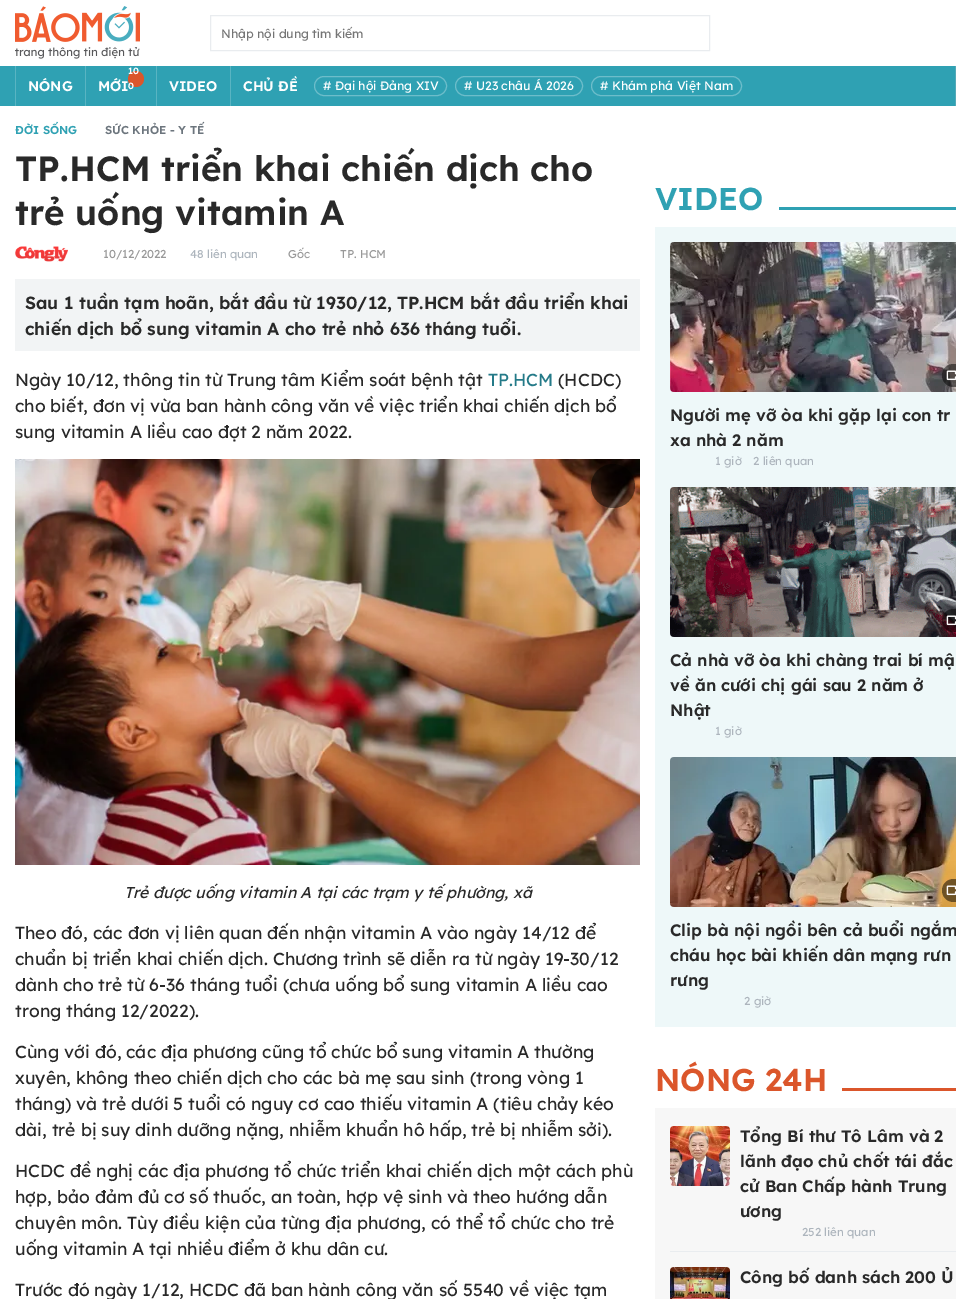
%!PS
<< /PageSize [956 1299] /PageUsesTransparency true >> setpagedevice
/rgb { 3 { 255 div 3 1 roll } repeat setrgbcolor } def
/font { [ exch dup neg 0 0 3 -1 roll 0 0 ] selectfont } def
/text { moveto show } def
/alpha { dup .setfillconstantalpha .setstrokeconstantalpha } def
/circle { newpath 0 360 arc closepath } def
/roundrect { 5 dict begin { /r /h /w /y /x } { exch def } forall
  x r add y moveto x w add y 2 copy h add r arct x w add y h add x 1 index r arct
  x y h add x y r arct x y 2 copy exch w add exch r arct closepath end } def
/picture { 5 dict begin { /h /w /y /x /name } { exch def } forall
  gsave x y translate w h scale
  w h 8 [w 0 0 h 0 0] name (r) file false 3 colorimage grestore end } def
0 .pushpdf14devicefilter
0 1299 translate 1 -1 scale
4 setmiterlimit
255 255 255 rgb
0 0 956 1299 rectfill
(img_01.rgb) 15 6 125 53 picture
233 236 239 rgb
210.5 15.5 499 35 rectstroke
47 161 179 rgb
0 66 955 40 rectfill
89 180 194 rgb
15 66 1 40 rectfill
85 66 1 40 rectfill
219 86 43 rgb
136 79 8 circle fill
89 180 194 rgb
156 66 1 40 rectfill
230 66 1 40 rectfill
109 189 202 rgb
314.5 76.5 132 19 9.5 roundrect stroke
455.5 76.5 127 19 9.5 roundrect stroke
591.5 76.5 150 19 9.5 roundrect stroke
85 169 183 rgb
955 66 1 40 rectfill
(img_02.rgb) 15 246 53 16 picture
242 244 245 rgb
15 279 625 72 rectfill
(img_03.rgb) 15 459 625 406 picture
0.5 alpha
0 0 0 rgb
613 486 22 circle fill
1 alpha
47 161 179 rgb
779 207 177 3 rectfill
238 248 249 rgb
655 227 301 800 rectfill
(img_04.rgb) 670 242 286 150 picture
0.5 alpha
0 0 0 rgb
953.5 375.5 11.5 circle fill
1 alpha
(img_05.rgb) 946 370 10 11 picture
(img_06.rgb) 670 487 286 150 picture
0.5 alpha
953.5 620.5 11.5 circle fill
1 alpha
(img_07.rgb) 946 615 10 11 picture
(img_08.rgb) 670 757 286 150 picture
0.5 alpha
953.5 890.5 11.5 circle fill
1 alpha
(img_09.rgb) 946 885 10 11 picture
219 86 43 rgb
842 1088 114 3 rectfill
247 247 247 rgb
655 1108 301 191 rectfill
(img_10.rgb) 670 1126 60 60 picture
233 236 239 rgb
670 1251 286 1 rectfill
(img_11.rgb) 670 1267 60 32 picture
/Lexend-Regular 12.25 font
117 117 117 rgb
(Nhập nội dung tìm kiếm) 221 38 text
/Lexend-SemiBold 14 font
255 255 255 rgb
(NÓNG) 28 91 text
(MỚI) 98 91 text
/Lexend-SemiBold 9 font
(10) 128 74 text
(0) 128 89 text
/Lexend-SemiBold 14 font
(VIDEO) 169 91 text
(CHỦ ĐỀ) 243 91 text
/Lexend-Regular 12.25 font
(# Đại hội Đảng XIV) 323 90 text
(# U23 châu Á 2026) 464 90 text
(# Khám phá Việt Nam) 600 90 text
/Lexend-SemiBold 11.5 font
47 161 179 rgb
(ĐỜI SỐNG) 15 134 text
108 117 125 rgb
(SỨC KHỎE - Y TẾ) 105 134 text
/Lexend-SemiBold 35 font
41 41 41 rgb
(TP.HCM triển khai chiến dịch cho) 15 181 text
(trẻ uống vitamin A) 15 225 text
/Lexend-Regular 11.5 font
153 153 153 rgb
(10/12/2022) 103 258 text
173 181 189 rgb
(48 liên quan) 190 258 text
153 153 153 rgb
(Gốc) 288 258 text
(TP. HCM) 340 258 text
/Lexend-SemiBold 17.5 font
41 41 41 rgb
(Sau 1 tuần tạm hoãn, bắt đầu từ 1930/12, TP.HCM bắt đầu triển khai) 25 309 text
(chiến dịch bổ sung vitamin A cho trẻ nhỏ 636 tháng tuổi.) 25 335 text
/Lexend-Regular 17.5 font
(Ngày 10/12, thông tin từ Trung tâm Kiểm soát bệnh tật) 15 386 text
36 122 136 rgb
(TP.HCM) 488 386 text
41 41 41 rgb
(\(HCDC\)) 558 386 text
(cho biết, đơn vị vừa ban hành công văn về việc triển khai chiến dịch bổ) 15 412 text
(sung vitamin A liều cao đợt 2 năm 2022.) 15 438 text
/Lexend-Italic 15.75 font
(Trẻ được uống vitamin A tại các trạm y tế phường, xã) 124 898 text
/Lexend-Regular 17.5 font
(Theo đó, các đơn vị liên quan đến nhận vitamin A vào ngày 14/12 để) 15 939 text
(chuẩn bị triển khai chiến dịch. Chương trình sẽ diễn ra từ ngày 19-30/12) 15 965 text
(dành cho trẻ từ 6-36 tháng tuổi \(chưa uống bổ sung vitamin A liều cao) 15 991 text
(trong tháng 12/2022\).) 15 1017 text
(Cùng với đó, các địa phương cũng tổ chức bổ sung vitamin A thường) 15 1058 text
(xuyên, không theo chiến dịch cho các bà mẹ sau sinh \(trong vòng 1) 15 1084 text
(tháng\) và trẻ dưới 5 tuổi có nguy cơ cao thiếu vitamin A \(tiêu chảy kéo) 15 1110 text
(dài, trẻ bị suy dinh dưỡng nặng, nhiễm khuẩn hô hấp, trẻ bị nhiễm sởi\).) 15 1136 text
(HCDC đề nghị các địa phương tổ chức triển khai chiến dịch một cách phù) 15 1177 text
(hợp, bảo đảm đủ cơ số thuốc, an toàn, hợp vệ sinh và theo hướng dẫn) 15 1203 text
(chuyên môn. Tùy điều kiện của từng địa phương, có thể tổ chức cho trẻ) 15 1229 text
(uống vitamin A tại nhiều điểm ở khu dân cư.) 15 1255 text
(Trước đó ngày 1/12, HCDC đã ban hành công văn số 5540 về việc tạm) 15 1296 text
/Lexend-SemiBold 31.5 font
47 161 179 rgb
(VIDEO) 655 210 text
/Lexend-SemiBold 16.6 font
41 41 41 rgb
(Người mẹ vỡ òa khi gặp lại con tr) 670 421 text
(xa nhà 2 năm) 670 446 text
/Lexend-Regular 11.5 font
173 181 189 rgb
(1 giờ) 715 465 text
(2 liên quan) 753 465 text
/Lexend-SemiBold 16.6 font
41 41 41 rgb
(Cả nhà vỡ òa khi chàng trai bí mậ) 670 666 text
(về ăn cưới chị gái sau 2 năm ở) 670 691 text
(Nhật) 670 716 text
/Lexend-Regular 11.5 font
173 181 189 rgb
(1 giờ) 715 735 text
/Lexend-SemiBold 16.6 font
41 41 41 rgb
(Clip bà nội ngồi bên cả buổi ngắm) 670 936 text
(cháu học bài khiến dân mạng rưn) 670 961 text
(rưng) 670 986 text
/Lexend-Regular 11.5 font
173 181 189 rgb
(2 giờ) 744 1005 text
/Lexend-SemiBold 31.5 font
219 86 43 rgb
(NÓNG 24H) 655 1091 text
/Lexend-SemiBold 16.6 font
41 41 41 rgb
(Tổng Bí thư Tô Lâm và 2) 740 1142 text
(lãnh đạo chủ chốt tái đắc) 740 1167 text
(cử Ban Chấp hành Trung) 740 1192 text
(ương) 740 1217 text
/Lexend-Regular 11.5 font
173 181 189 rgb
(252 liên quan) 802 1236 text
/Lexend-SemiBold 16.6 font
41 41 41 rgb
(Công bố danh sách 200 Ủ) 740 1283 text
.poppdf14devicefilter showpage
